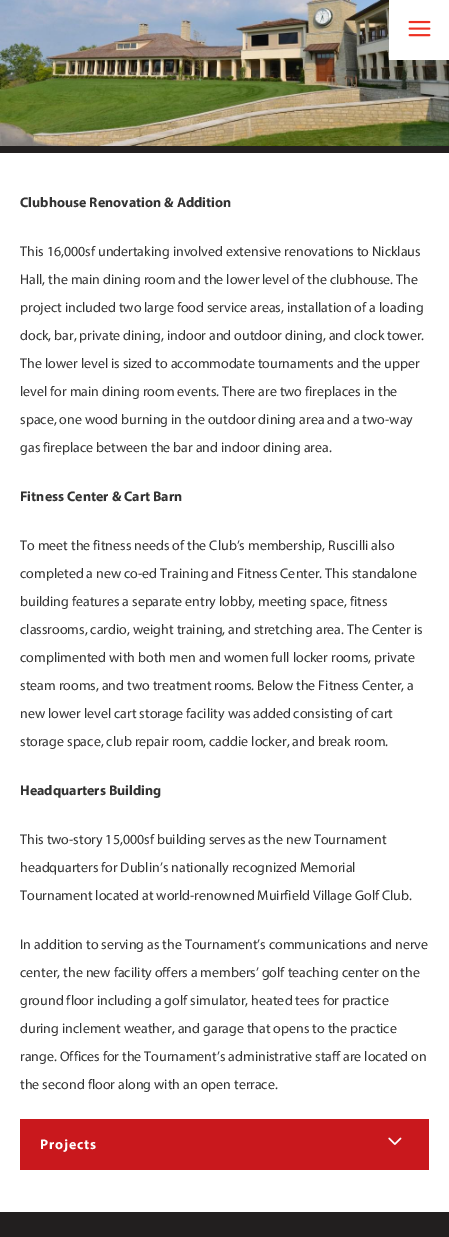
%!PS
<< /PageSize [449 1237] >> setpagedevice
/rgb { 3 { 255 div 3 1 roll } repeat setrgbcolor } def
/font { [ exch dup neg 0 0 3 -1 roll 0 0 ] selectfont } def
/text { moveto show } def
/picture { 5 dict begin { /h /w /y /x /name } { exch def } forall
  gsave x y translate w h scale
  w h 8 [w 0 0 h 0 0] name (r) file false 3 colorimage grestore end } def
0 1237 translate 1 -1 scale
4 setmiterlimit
34 31 31 rgb
0 0 449 1237 rectfill
(img_01.rgb) 0 0 449 146 picture
255 255 255 rgb
389 0 60 60 rectfill
(img_02.rgb) 408 20 23 17 picture
0 153 449 1059 rectfill
201 24 29 rgb
20 1119 409 51 rectfill
(img_03.rgb) 388 1137 14 8 picture
/Myriad-Bold 14 font
51 51 51 rgb
(Clubhouse Renovation & Addition) 20 207 text
/Myriad-Regular 14 font
(This 16,000sf undertaking involved extensive renovations to Nicklaus) 20 256 text
(Hall, the main dining room and the lower level of the clubhouse. The) 20 284 text
(project included two large food service areas, installation of a loading) 20 312 text
(dock, bar, private dining, indoor and outdoor dining, and clock tower.) 20 340 text
(The lower level is sized to accommodate tournaments and the upper) 20 368 text
(level for main dining room events. There are two fireplaces in the) 20 396 text
(space, one wood burning in the outdoor dining area and a two-way) 20 424 text
(gas fireplace between the bar and indoor dining area.) 20 452 text
/Myriad-Bold 14 font
(Fitness Center & Cart Barn) 20 501 text
/Myriad-Regular 14 font
(To meet the fitness needs of the Club’s membership, Ruscilli also) 20 550 text
(completed a new co-ed Training and Fitness Center. This standalone) 20 578 text
(building features a separate entry lobby, meeting space, fitness) 20 606 text
(classrooms, cardio, weight training, and stretching area. The Center is) 20 634 text
(complimented with both men and women full locker rooms, private) 20 662 text
(steam rooms, and two treatment rooms. Below the Fitness Center, a) 20 690 text
(new lower level cart storage facility was added consisting of cart) 20 718 text
(storage space, club repair room, caddie locker, and break room.) 20 746 text
/Myriad-Bold 14 font
(Headquarters Building) 20 795 text
/Myriad-Regular 14 font
(This two-story 15,000sf building serves as the new Tournament) 20 844 text
(headquarters for Dublin’s nationally recognized Memorial) 20 872 text
(Tournament located at world-renowned Muirfield Village Golf Club.) 20 900 text
(In addition to serving as the Tournament’s communications and nerve) 20 949 text
(center, the new facility offers a members’ golf teaching center on the) 20 977 text
(ground floor including a golf simulator, heated tees for practice) 20 1005 text
(during inclement weather, and garage that opens to the practice) 20 1033 text
(range. Offices for the Tournament’s administrative staff are located on) 20 1061 text
(the second floor along with an open terrace.) 20 1089 text
/Myriad-Bold 14 font
255 255 255 rgb
40 1149 moveto 0.75 0 (Projects) ashow
showpage
